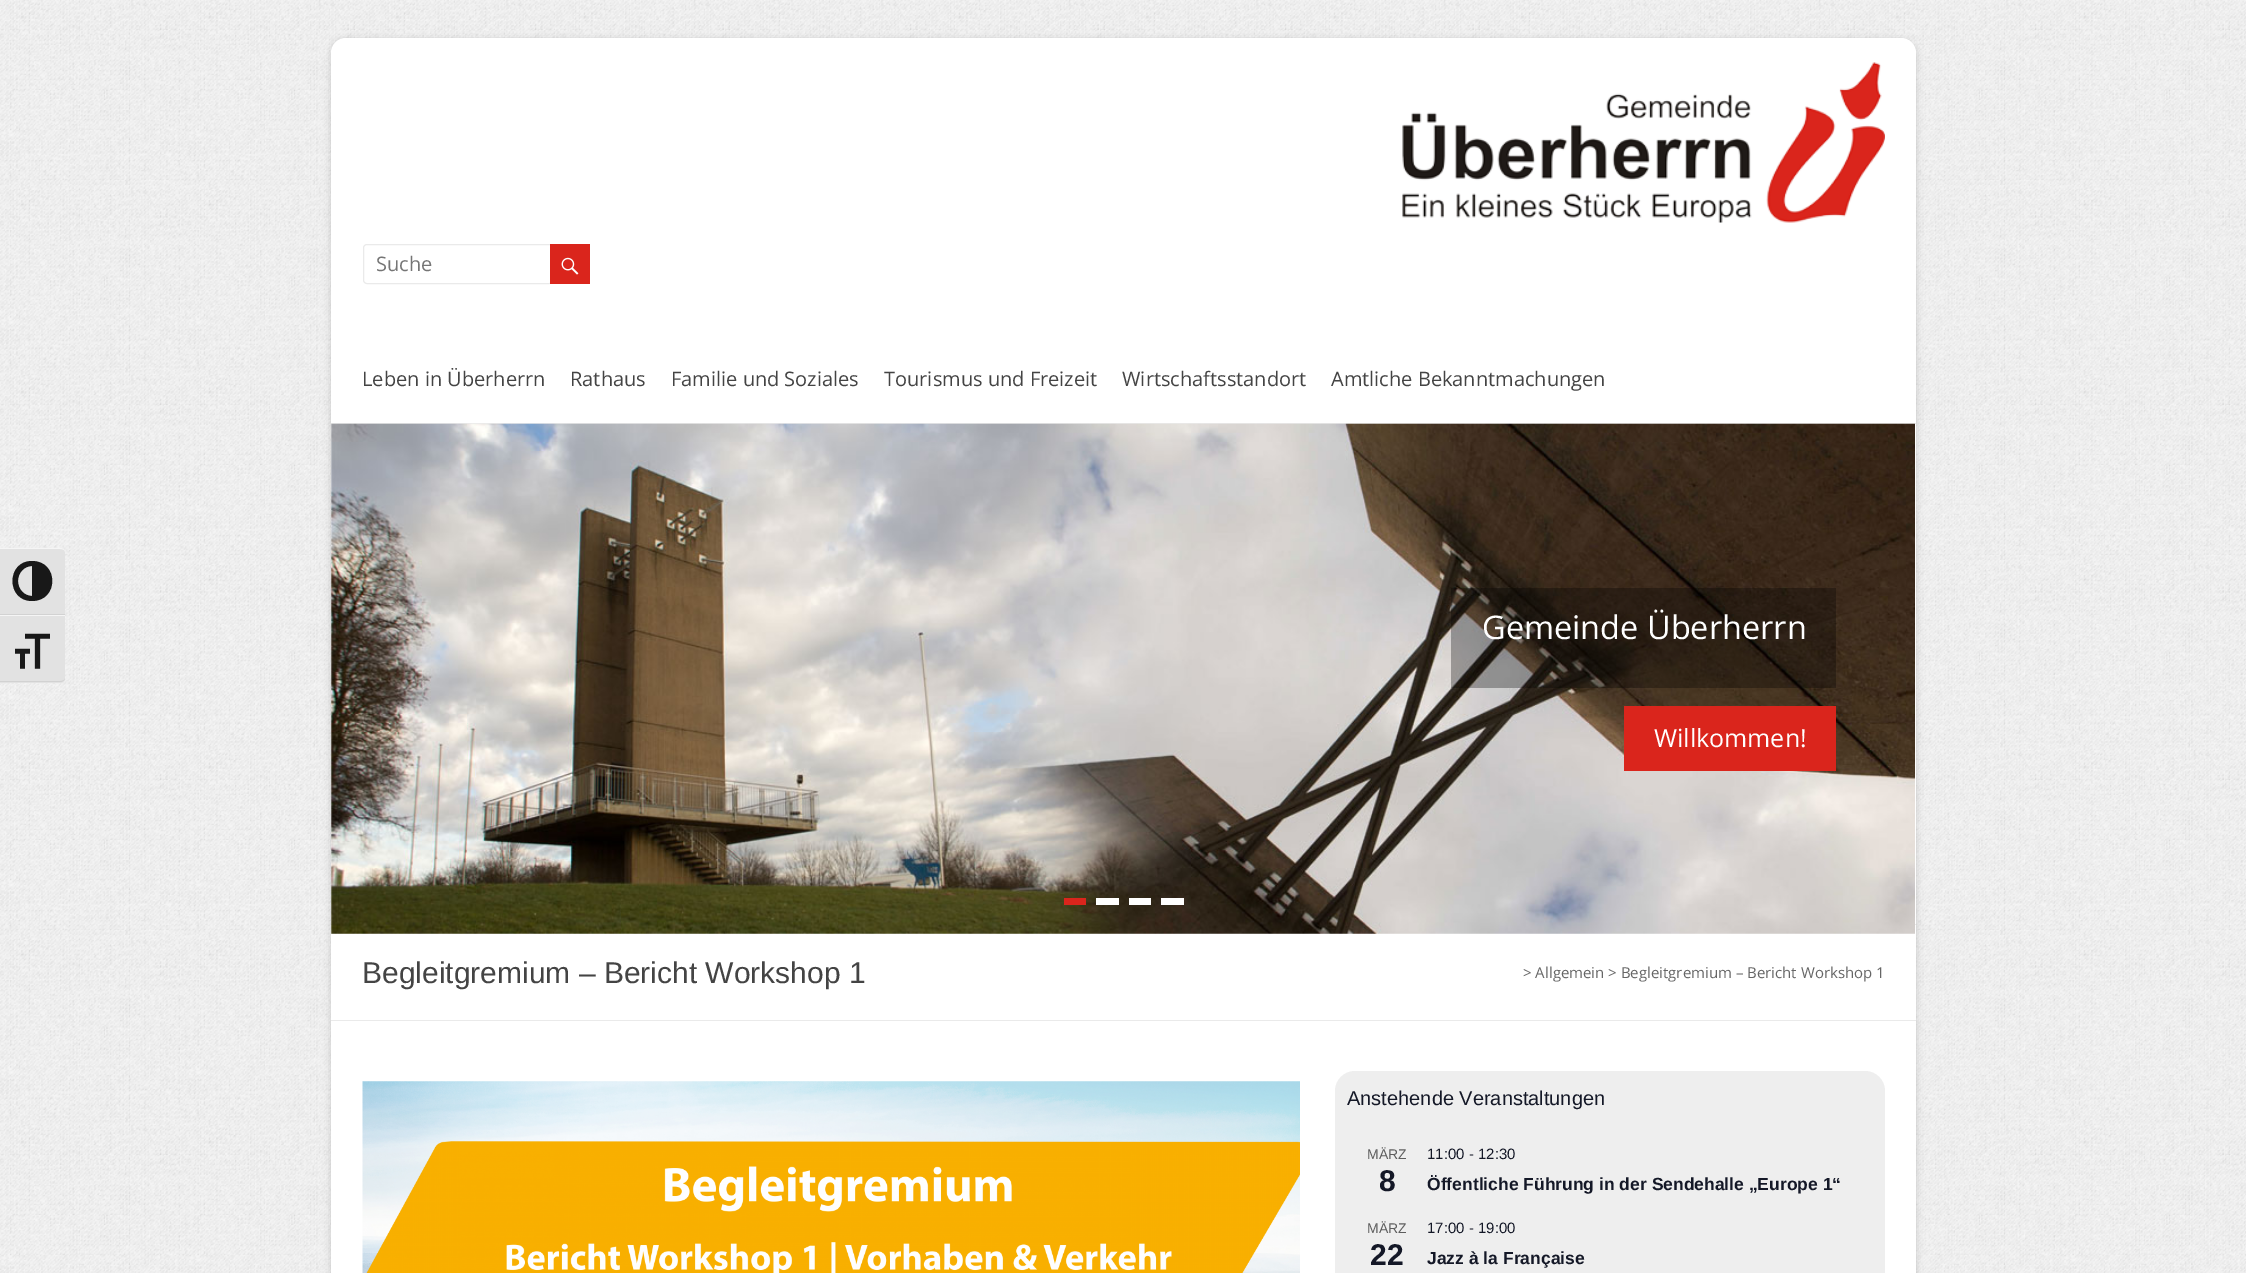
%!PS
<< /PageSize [2246 1273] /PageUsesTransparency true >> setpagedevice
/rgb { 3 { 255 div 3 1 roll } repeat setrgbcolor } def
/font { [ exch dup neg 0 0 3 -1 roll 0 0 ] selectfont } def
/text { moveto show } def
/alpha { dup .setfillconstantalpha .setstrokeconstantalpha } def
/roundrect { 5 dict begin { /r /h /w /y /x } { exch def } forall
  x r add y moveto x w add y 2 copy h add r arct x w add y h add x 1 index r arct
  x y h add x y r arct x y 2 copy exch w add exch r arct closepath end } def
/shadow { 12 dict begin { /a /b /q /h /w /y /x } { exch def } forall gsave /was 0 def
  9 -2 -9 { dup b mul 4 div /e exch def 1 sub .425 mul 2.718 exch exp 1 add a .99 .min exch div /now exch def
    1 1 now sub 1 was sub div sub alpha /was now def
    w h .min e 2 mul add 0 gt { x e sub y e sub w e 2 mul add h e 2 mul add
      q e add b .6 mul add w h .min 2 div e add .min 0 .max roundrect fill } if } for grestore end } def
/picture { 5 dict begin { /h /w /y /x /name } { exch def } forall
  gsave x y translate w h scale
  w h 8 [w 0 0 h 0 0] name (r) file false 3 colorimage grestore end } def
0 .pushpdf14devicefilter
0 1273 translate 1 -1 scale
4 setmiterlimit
255 255 255 rgb
0 0 2246 1273 rectfill
(img_01.rgb) 0 0 2246 1273 picture
226 226 226 rgb
0 548 moveto 60 0 rlineto 3 0 5 2 5 5 rcurveto 0 62 rlineto -65 0 rlineto closepath fill
245 245 245 rgb
0 549 moveto 60 0 rlineto 3 0 5 1 5 3 rcurveto 0 -2 -2 -4 -5 -4 rcurveto -60 0 rlineto closepath fill
210 210 210 rgb
0 614 65 1 rectfill
24 24 24 rgb
32 561 moveto -26 0 -26 40 0 40 rcurveto 27 0 27 -40 0 -40 rcurveto closepath 18 581 moveto 0 -8 6 -15 14 -15 rcurveto 0 30 rlineto -8 0 -14 -7 -14 -15 rcurveto closepath fill
226 226 226 rgb
0 615 moveto 65 0 rlineto 0 63 rlineto 0 3 -2 5 -5 5 rcurveto -60 0 rlineto closepath fill
245 245 245 rgb
0 615 65 1 rectfill
210 210 210 rgb
0 681 moveto 0 1 rlineto 60 0 rlineto 3 0 5 -2 5 -4 rcurveto 0 2 -2 3 -5 3 rcurveto closepath fill
(img_02.rgb) 15 633 35 36 picture
100 100 100 rgb
331 40 1585 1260 15 4 0.3 shadow
255 255 255 rgb
331 38 1585 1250 15 roundrect fill
234 234 234 rgb
331 423 1585 1 rectfill
(img_03.rgb) 1402 62 483 161 picture
363.5 244.5 189 39 3.5 roundrect stroke
218 37 28 rgb
550 244 40 40 rectfill
(img_04.rgb) 561 257 18 18 picture
234 234 234 rgb
331 924 1585 1 rectfill
(img_05.rgb) 331 423 1584 511 picture
0.3 alpha
0 0 0 rgb
1451 588 385 100 rectfill
1 alpha
218 37 28 rgb
1624 706 212 65 rectfill
1064 898 22 7 rectfill
255 255 255 rgb
1096 898 23 7 rectfill
1129 898 22 7 rectfill
1161 898 23 7 rectfill
234 234 234 rgb
331 1020 1585 1 rectfill
(img_06.rgb) 362 1081 938 192 picture
238 238 238 rgb
1335 1071 550 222 20 roundrect fill
/OpenSans-Regular 20 font
117 117 117 rgb
(Suche) 376 271 text
68 68 68 rgb
(Leben in Überherrn) 362 386 text
(Rathaus) 570 386 text
(Familie und Soziales) 671 386 text
(Tourismus und Freizeit) 884 386 text
(Wirtschaftsstandort) 1122 386 text
(Amtliche Bekanntmachungen) 1331 386 text
/OpenSans-Regular 32.5 font
255 255 255 rgb
(Gemeinde Überherrn) 1482 639 text
/OpenSans-Regular 25 font
(Willkommen!) 1654 747 text
/LiberationSans-Regular 30 font
68 68 68 rgb
(Begleitgremium – Bericht Workshop 1) 362 983 text
/OpenSans-Regular 15 font
102 102 102 rgb
(> Allgemein > Begleitgremium – Bericht Workshop 1) 1523 978 text
/LiberationSans-Regular 20 font
20 24 39 rgb
(Anstehende Veranstaltungen) 1347 1105 text
/LiberationSans-Regular 14 font
93 93 93 rgb
(MÄRZ) 1367 1159 text
/LiberationSans-Bold 30 font
20 24 39 rgb
(8) 1379 1191 text
/LiberationSans-Regular 15 font
(11:00 - 12:30) 1427 1159 text
/LiberationSans-Bold 17.5 font
(Öffentliche Führung in der Sendehalle „Europe 1“) 1427 1190 text
/LiberationSans-Regular 14 font
93 93 93 rgb
(MÄRZ) 1367 1233 text
/LiberationSans-Bold 30 font
20 24 39 rgb
(22) 1370 1265 text
/LiberationSans-Regular 15 font
(17:00 - 19:00) 1427 1233 text
/LiberationSans-Bold 17.5 font
(Jazz à la Française) 1427 1264 text
.poppdf14devicefilter showpage
